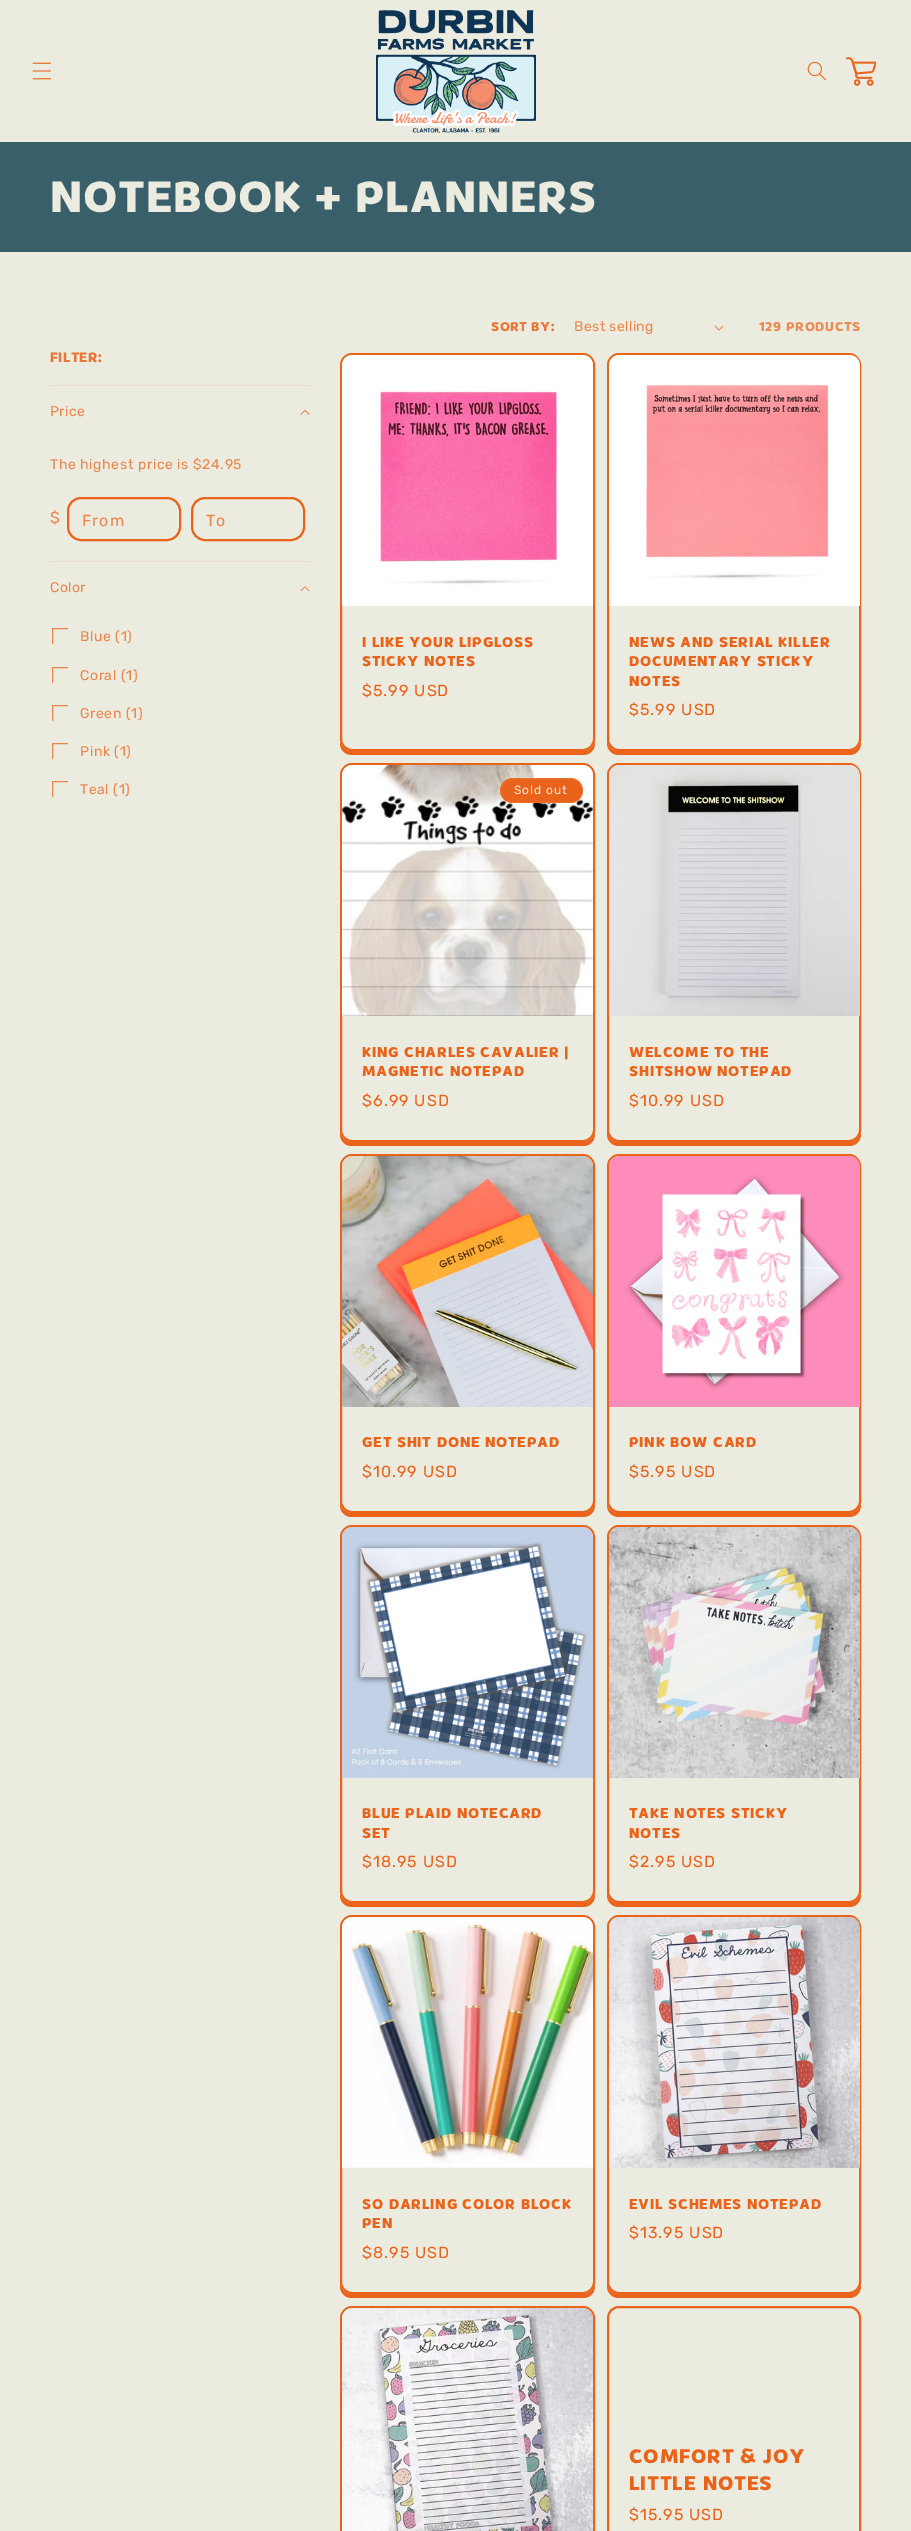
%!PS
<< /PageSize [911 2531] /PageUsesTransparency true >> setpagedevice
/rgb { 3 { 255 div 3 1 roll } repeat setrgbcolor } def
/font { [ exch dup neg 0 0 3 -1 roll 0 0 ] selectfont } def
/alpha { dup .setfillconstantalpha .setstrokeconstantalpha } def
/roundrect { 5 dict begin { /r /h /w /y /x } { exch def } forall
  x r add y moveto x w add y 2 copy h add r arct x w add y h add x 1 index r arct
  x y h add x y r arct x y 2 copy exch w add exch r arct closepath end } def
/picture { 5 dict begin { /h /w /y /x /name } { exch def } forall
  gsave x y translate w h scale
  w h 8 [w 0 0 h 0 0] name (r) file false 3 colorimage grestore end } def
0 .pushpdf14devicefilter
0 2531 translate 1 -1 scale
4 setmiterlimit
235 235 223 rgb
0 0 911 2531 rectfill
(img_01.rgb) 32 62 20 18 picture
(img_02.rgb) 376 10 160 123 picture
(img_03.rgb) 807 61 19 20 picture
(img_04.rgb) 846 57 30 29 picture
57 95 107 rgb
0 142 911 110 rectfill
(img_05.rgb) 714 325 10 6 picture
235 221 203 rgb
50 385 260 1 rectfill
(img_06.rgb) 300 410 10 5 picture
233 99 26 rgb
2 setlinewidth
68 498 112 42 13 roundrect stroke
192 498 112 42 13 roundrect stroke
235 221 203 rgb
50 561 260 1 rectfill
(img_07.rgb) 300 586 10 5 picture
gsave
52 628 16 16 rectclip
234 133 75 rgb
1 setlinewidth
52.5 628.5 16 16 rectstroke
grestore
gsave
52 667 16 16 rectclip
234 133 75 rgb
1 setlinewidth
52.5 667.5 16 16 rectstroke
grestore
gsave
52 705 16 16 rectclip
234 133 75 rgb
1 setlinewidth
52.5 705.5 16 16 rectstroke
grestore
gsave
52 743 16 16 rectclip
234 133 75 rgb
1 setlinewidth
52.5 743.5 16 16 rectstroke
grestore
gsave
52 781 16 16 rectclip
234 133 75 rgb
1 setlinewidth
52.5 781.5 16 16 rectstroke
grestore
233 99 26 rgb
341 354 253 396 11 roundrect stroke
(img_08.rgb) 342 355 251 251 picture
340 739 moveto 0 4 rlineto 0 7 5 12 12 12 rcurveto 231 0 rlineto 7 0 12 -5 12 -12 rcurveto 0 -4 rlineto 0 7 -5 12 -12 12 rcurveto -231 0 rlineto -7 0 -12 -5 -12 -12 rcurveto closepath fill
608 354 252 396 11 roundrect stroke
(img_09.rgb) 609 355 251 251 picture
607 739 moveto 0 4 rlineto 0 7 5 12 12 12 rcurveto 230 0 rlineto 7 0 12 -5 12 -12 rcurveto 0 -4 rlineto 0 7 -5 12 -12 12 rcurveto -230 0 rlineto -7 0 -12 -5 -12 -12 rcurveto closepath fill
341 764 253 377 11 roundrect stroke
(img_10.rgb) 342 765 251 251 picture
500 778 83 25 12.5 roundrect fill
0.1 alpha
235 235 223 rgb
1 setlinewidth
500.5 778.5 82 24 12 roundrect stroke
1 alpha
233 99 26 rgb
340 1130 moveto 0 4 rlineto 0 7 5 12 12 12 rcurveto 231 0 rlineto 7 0 12 -5 12 -12 rcurveto 0 -4 rlineto 0 7 -5 12 -12 12 rcurveto -231 0 rlineto -7 0 -12 -5 -12 -12 rcurveto closepath fill
2 setlinewidth
608 764 252 377 11 roundrect stroke
(img_11.rgb) 609 765 251 251 picture
607 1130 moveto 0 4 rlineto 0 7 5 12 12 12 rcurveto 230 0 rlineto 7 0 12 -5 12 -12 rcurveto 0 -4 rlineto 0 7 -5 12 -12 12 rcurveto -230 0 rlineto -7 0 -12 -5 -12 -12 rcurveto closepath fill
341 1155 253 357 11 roundrect stroke
(img_12.rgb) 342 1156 251 251 picture
340 1501 moveto 0 4 rlineto 0 7 5 12 12 12 rcurveto 231 0 rlineto 7 0 12 -5 12 -12 rcurveto 0 -4 rlineto 0 7 -5 12 -12 12 rcurveto -231 0 rlineto -7 0 -12 -5 -12 -12 rcurveto closepath fill
608 1155 252 357 11 roundrect stroke
(img_13.rgb) 609 1156 251 251 picture
607 1501 moveto 0 4 rlineto 0 7 5 12 12 12 rcurveto 230 0 rlineto 7 0 12 -5 12 -12 rcurveto 0 -4 rlineto 0 7 -5 12 -12 12 rcurveto -230 0 rlineto -7 0 -12 -5 -12 -12 rcurveto closepath fill
341 1526 253 376 11 roundrect stroke
(img_14.rgb) 342 1527 251 251 picture
340 1891 moveto 0 4 rlineto 0 7 5 12 12 12 rcurveto 231 0 rlineto 7 0 12 -5 12 -12 rcurveto 0 -4 rlineto 0 7 -5 12 -12 12 rcurveto -231 0 rlineto -7 0 -12 -5 -12 -12 rcurveto closepath fill
608 1526 252 376 11 roundrect stroke
(img_15.rgb) 609 1527 251 251 picture
607 1891 moveto 0 4 rlineto 0 7 5 12 12 12 rcurveto 230 0 rlineto 7 0 12 -5 12 -12 rcurveto 0 -4 rlineto 0 7 -5 12 -12 12 rcurveto -230 0 rlineto -7 0 -12 -5 -12 -12 rcurveto closepath fill
341 1916 253 377 11 roundrect stroke
(img_16.rgb) 342 1917 251 251 picture
340 2282 moveto 0 4 rlineto 0 7 5 12 12 12 rcurveto 231 0 rlineto 7 0 12 -5 12 -12 rcurveto 0 -4 rlineto 0 7 -5 12 -12 12 rcurveto -231 0 rlineto -7 0 -12 -5 -12 -12 rcurveto closepath fill
608 1916 252 377 11 roundrect stroke
(img_17.rgb) 609 1917 251 251 picture
607 2282 moveto 0 4 rlineto 0 7 5 12 12 12 rcurveto 230 0 rlineto 7 0 12 -5 12 -12 rcurveto 0 -4 rlineto 0 7 -5 12 -12 12 rcurveto -230 0 rlineto -7 0 -12 -5 -12 -12 rcurveto closepath fill
341 2307 253 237 11 roundrect stroke
(img_18.rgb) 342 2308 251 223 picture
608 2307 252 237 11 roundrect stroke
/BraahOne-Regular 48 font
235 235 223 rgb
50 212 moveto 0.75 0 (NOTEBOOK + PLANNERS) ashow
/BraahOne-Regular 14 font
233 119 56 rgb
491 331 moveto 0.4 0 (SORT BY:) ashow
/Rubik-Regular 14 font
234 133 75 rgb
574 331 moveto 0.4 0 (Best selling) ashow
/BraahOne-Regular 14 font
234 140 85 rgb
759 331 moveto 0.6 0 (129 PRODUCTS) ashow
/BraahOne-Regular 15 font
233 119 56 rgb
50 362 moveto 0.4 0 (FILTER:) ashow
/Rubik-Regular 14 font
234 133 75 rgb
50 416 moveto 0.4 0 (Price) ashow
50 469 moveto 0.6 0 (The highest price is $24.95) ashow
/Rubik-Regular 16 font
50 523 moveto 0.6 0 ($) ashow
82 526 moveto 1 0 (From) ashow
206 526 moveto 1 0 (To) ashow
/Rubik-Regular 14 font
50 592 moveto 0.4 0 (Color) ashow
80 641 moveto 0.6 0 (Blue \(1\)) ashow
80 680 moveto 0.6 0 (Coral \(1\)) ashow
80 718 moveto 0.6 0 (Green \(1\)) ashow
80 756 moveto 0.6 0 (Pink \(1\)) ashow
80 794 moveto 0.6 0 (Teal \(1\)) ashow
/BraahOne-Regular 15.6 font
233 99 26 rgb
362 647 moveto 0.75 0 (I LIKE YOUR LIPGLOSS) ashow
362 666 moveto 0.75 0 (STICKY NOTES) ashow
/Rubik-Regular 16 font
362 696 moveto 1 0 ($5.99 USD) ashow
/BraahOne-Regular 15.6 font
629 647 moveto 0.75 0 (NEWS AND SERIAL KILLER) ashow
629 666 moveto 0.75 0 (DOCUMENTARY STICKY) ashow
629 686 moveto 0.75 0 (NOTES) ashow
/Rubik-Regular 16 font
629 715 moveto 1 0 ($5.99 USD) ashow
/Rubik-Regular 12 font
235 235 223 rgb
514 794 moveto 1 0 (Sold out) ashow
/BraahOne-Regular 15.6 font
233 99 26 rgb
362 1057 moveto 0.75 0 (KING CHARLES CAVALIER |) ashow
362 1076 moveto 0.75 0 (MAGNETIC NOTEPAD) ashow
/Rubik-Regular 16 font
362 1106 moveto 1 0 ($6.99 USD) ashow
/BraahOne-Regular 15.6 font
629 1057 moveto 0.75 0 (WELCOME TO THE) ashow
629 1076 moveto 0.75 0 (SHITSHOW NOTEPAD) ashow
/Rubik-Regular 16 font
629 1106 moveto 1 0 ($10.99 USD) ashow
/BraahOne-Regular 15.6 font
362 1447 moveto 0.75 0 (GET SHIT DONE NOTEPAD) ashow
/Rubik-Regular 16 font
362 1477 moveto 1 0 ($10.99 USD) ashow
/BraahOne-Regular 15.6 font
629 1447 moveto 0.75 0 (PINK BOW CARD) ashow
/Rubik-Regular 16 font
629 1477 moveto 1 0 ($5.95 USD) ashow
/BraahOne-Regular 15.6 font
362 1818 moveto 0.75 0 (BLUE PLAID NOTECARD) ashow
362 1838 moveto 0.75 0 (SET) ashow
/Rubik-Regular 16 font
362 1867 moveto 1 0 ($18.95 USD) ashow
/BraahOne-Regular 15.6 font
629 1818 moveto 0.75 0 (TAKE NOTES STICKY) ashow
629 1838 moveto 0.75 0 (NOTES) ashow
/Rubik-Regular 16 font
629 1867 moveto 1 0 ($2.95 USD) ashow
/BraahOne-Regular 15.6 font
362 2209 moveto 0.75 0 (SO DARLING COLOR BLOCK) ashow
362 2228 moveto 0.75 0 (PEN) ashow
/Rubik-Regular 16 font
362 2258 moveto 1 0 ($8.95 USD) ashow
/BraahOne-Regular 15.6 font
629 2209 moveto 0.75 0 (EVIL SCHEMES NOTEPAD) ashow
/Rubik-Regular 16 font
629 2238 moveto 1 0 ($13.95 USD) ashow
/BraahOne-Regular 21.5 font
629 2463 moveto 0.75 0 (COMFORT & JOY) ashow
629 2490 moveto 0.75 0 (LITTLE NOTES) ashow
/Rubik-Regular 16 font
629 2520 moveto 1 0 ($15.95 USD) ashow
.poppdf14devicefilter showpage
